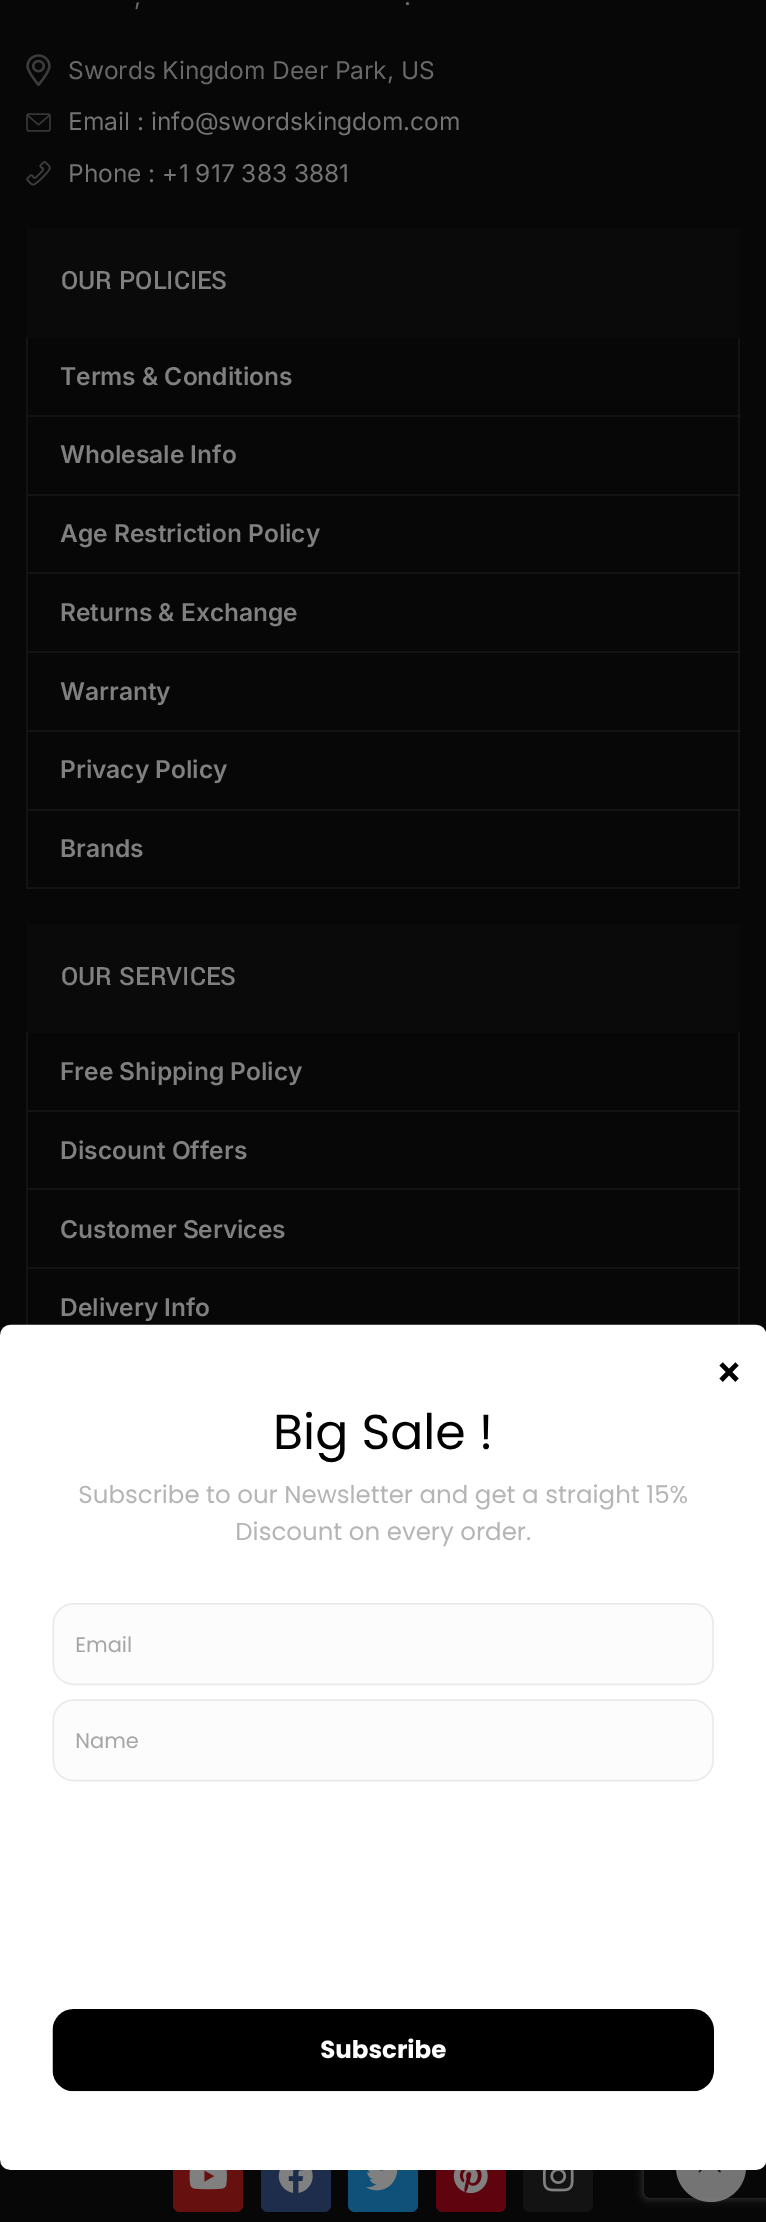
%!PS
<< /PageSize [766 2222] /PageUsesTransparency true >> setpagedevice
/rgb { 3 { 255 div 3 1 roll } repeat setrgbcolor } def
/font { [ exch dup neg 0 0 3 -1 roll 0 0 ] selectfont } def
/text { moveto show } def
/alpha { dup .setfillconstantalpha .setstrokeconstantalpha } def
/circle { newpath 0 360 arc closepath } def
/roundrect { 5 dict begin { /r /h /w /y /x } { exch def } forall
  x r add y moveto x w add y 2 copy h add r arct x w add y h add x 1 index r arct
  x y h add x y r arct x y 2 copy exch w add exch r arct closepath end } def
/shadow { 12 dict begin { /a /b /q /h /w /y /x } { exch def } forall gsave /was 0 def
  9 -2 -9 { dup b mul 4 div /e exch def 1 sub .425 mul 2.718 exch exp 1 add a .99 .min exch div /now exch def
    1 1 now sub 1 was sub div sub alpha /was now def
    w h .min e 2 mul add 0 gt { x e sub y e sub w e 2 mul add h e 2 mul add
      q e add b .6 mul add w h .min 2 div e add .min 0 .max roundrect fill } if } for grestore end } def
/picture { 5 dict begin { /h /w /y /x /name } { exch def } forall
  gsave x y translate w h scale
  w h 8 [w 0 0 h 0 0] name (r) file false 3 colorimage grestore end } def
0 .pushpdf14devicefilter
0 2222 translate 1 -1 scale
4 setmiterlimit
8 7 7 rgb
0 0 766 2222 rectfill
(img_01.rgb) 26 54 25 32 picture
(img_02.rgb) 26 113 25 19 picture
(img_03.rgb) 26 161 25 25 picture
10 10 10 rgb
26 228 714 110 rectfill
20 19 19 rgb
740 338 moveto 0 551 rlineto -2 -2 rlineto 0 -549 rlineto closepath fill
0.1 alpha
128 128 128 rgb
740 889 moveto -714 0 rlineto 2 -2 rlineto 710 0 rlineto closepath fill
26 889 moveto 0 -551 rlineto 2 0 rlineto 0 549 rlineto closepath fill
28 415 711 2 rectfill
28 494 711 2 rectfill
28 572 711 2 rectfill
28 651 711 2 rectfill
28 730 711 2 rectfill
28 809 711 2 rectfill
1 alpha
10 10 10 rgb
26 924 714 109 rectfill
0.1 alpha
128 128 128 rgb
740 1032 moveto 0 552 rlineto -2 -2 rlineto 0 -550 rlineto closepath fill
26 1584 moveto 0 -552 rlineto 2 0 rlineto 0 550 rlineto closepath fill
28 1110 711 2 rectfill
28 1188 711 2 rectfill
28 1267 711 2 rectfill
1 alpha
103 16 16 rgb
173 2142 70 70 7 roundrect fill
(img_04.rgb) 189 2170 38 20 picture
30 45 76 rgb
261 2142 70 70 7 roundrect fill
(img_05.rgb) 278 2170 35 23 picture
15 81 121 rgb
348 2142 70 70 7 roundrect fill
(img_06.rgb) 366 2170 32 21 picture
95 4 14 rgb
436 2142 70 70 7 roundrect fill
(img_07.rgb) 453 2170 35 24 picture
19 19 19 rgb
523 2142 70 70 7 roundrect fill
(img_08.rgb) 542 2170 32 22 picture
gsave
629 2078 moveto 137 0 rlineto 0 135 rlineto -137 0 rlineto closepath 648 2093 moveto 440 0 rlineto 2 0 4 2 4 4 rcurveto 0 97 rlineto 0 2 -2 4 -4 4 rcurveto -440 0 rlineto -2 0 -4 -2 -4 -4 rcurveto 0 -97 rlineto 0 -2 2 -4 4 -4 rcurveto closepath eoclip newpath
64 64 64 rgb
644 2093 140 105 4 4.5 1 shadow
grestore
0.9 alpha
128 128 128 rgb
711 2167 35 circle fill
1 alpha
26 26 26 rgb
720 2172.5 moveto 1 -1 rlineto -11.5 -11.5 rlineto -11 11.5 rlineto 1 1 rlineto 10 -10 rlineto closepath fill
(img_09.rgb) 0 1324 766 846 picture
/Inter-Regular 24.5 font
104 104 104 rgb
(,) 134 5 text
(.) 404 5 text
(Swords Kingdom Deer Park, US) 68 79 text
116 116 116 rgb
(Email : info@swordskingdom.com) 68 130 text
(Phone : +1 917 383 3881) 68 182 text
/Yantramanav-Medium 28 font
128 128 128 rgb
(OUR POLICIES) 61 289 text
/Inter-SemiBold 24.5 font
(Terms & Conditions) 60 385 text
(Wholesale Info) 60 463 text
(Age Restriction Policy) 60 542 text
(Returns & Exchange) 60 621 text
(Warranty) 60 700 text
(Privacy Policy) 60 778 text
(Brands) 60 857 text
/Yantramanav-Medium 28 font
(OUR SERVICES) 61 985 text
/Inter-SemiBold 24.5 font
(Free Shipping Policy) 60 1080 text
(Discount Offers) 60 1159 text
(Customer Services) 60 1238 text
(Delivery Info) 60 1316 text
.poppdf14devicefilter showpage
